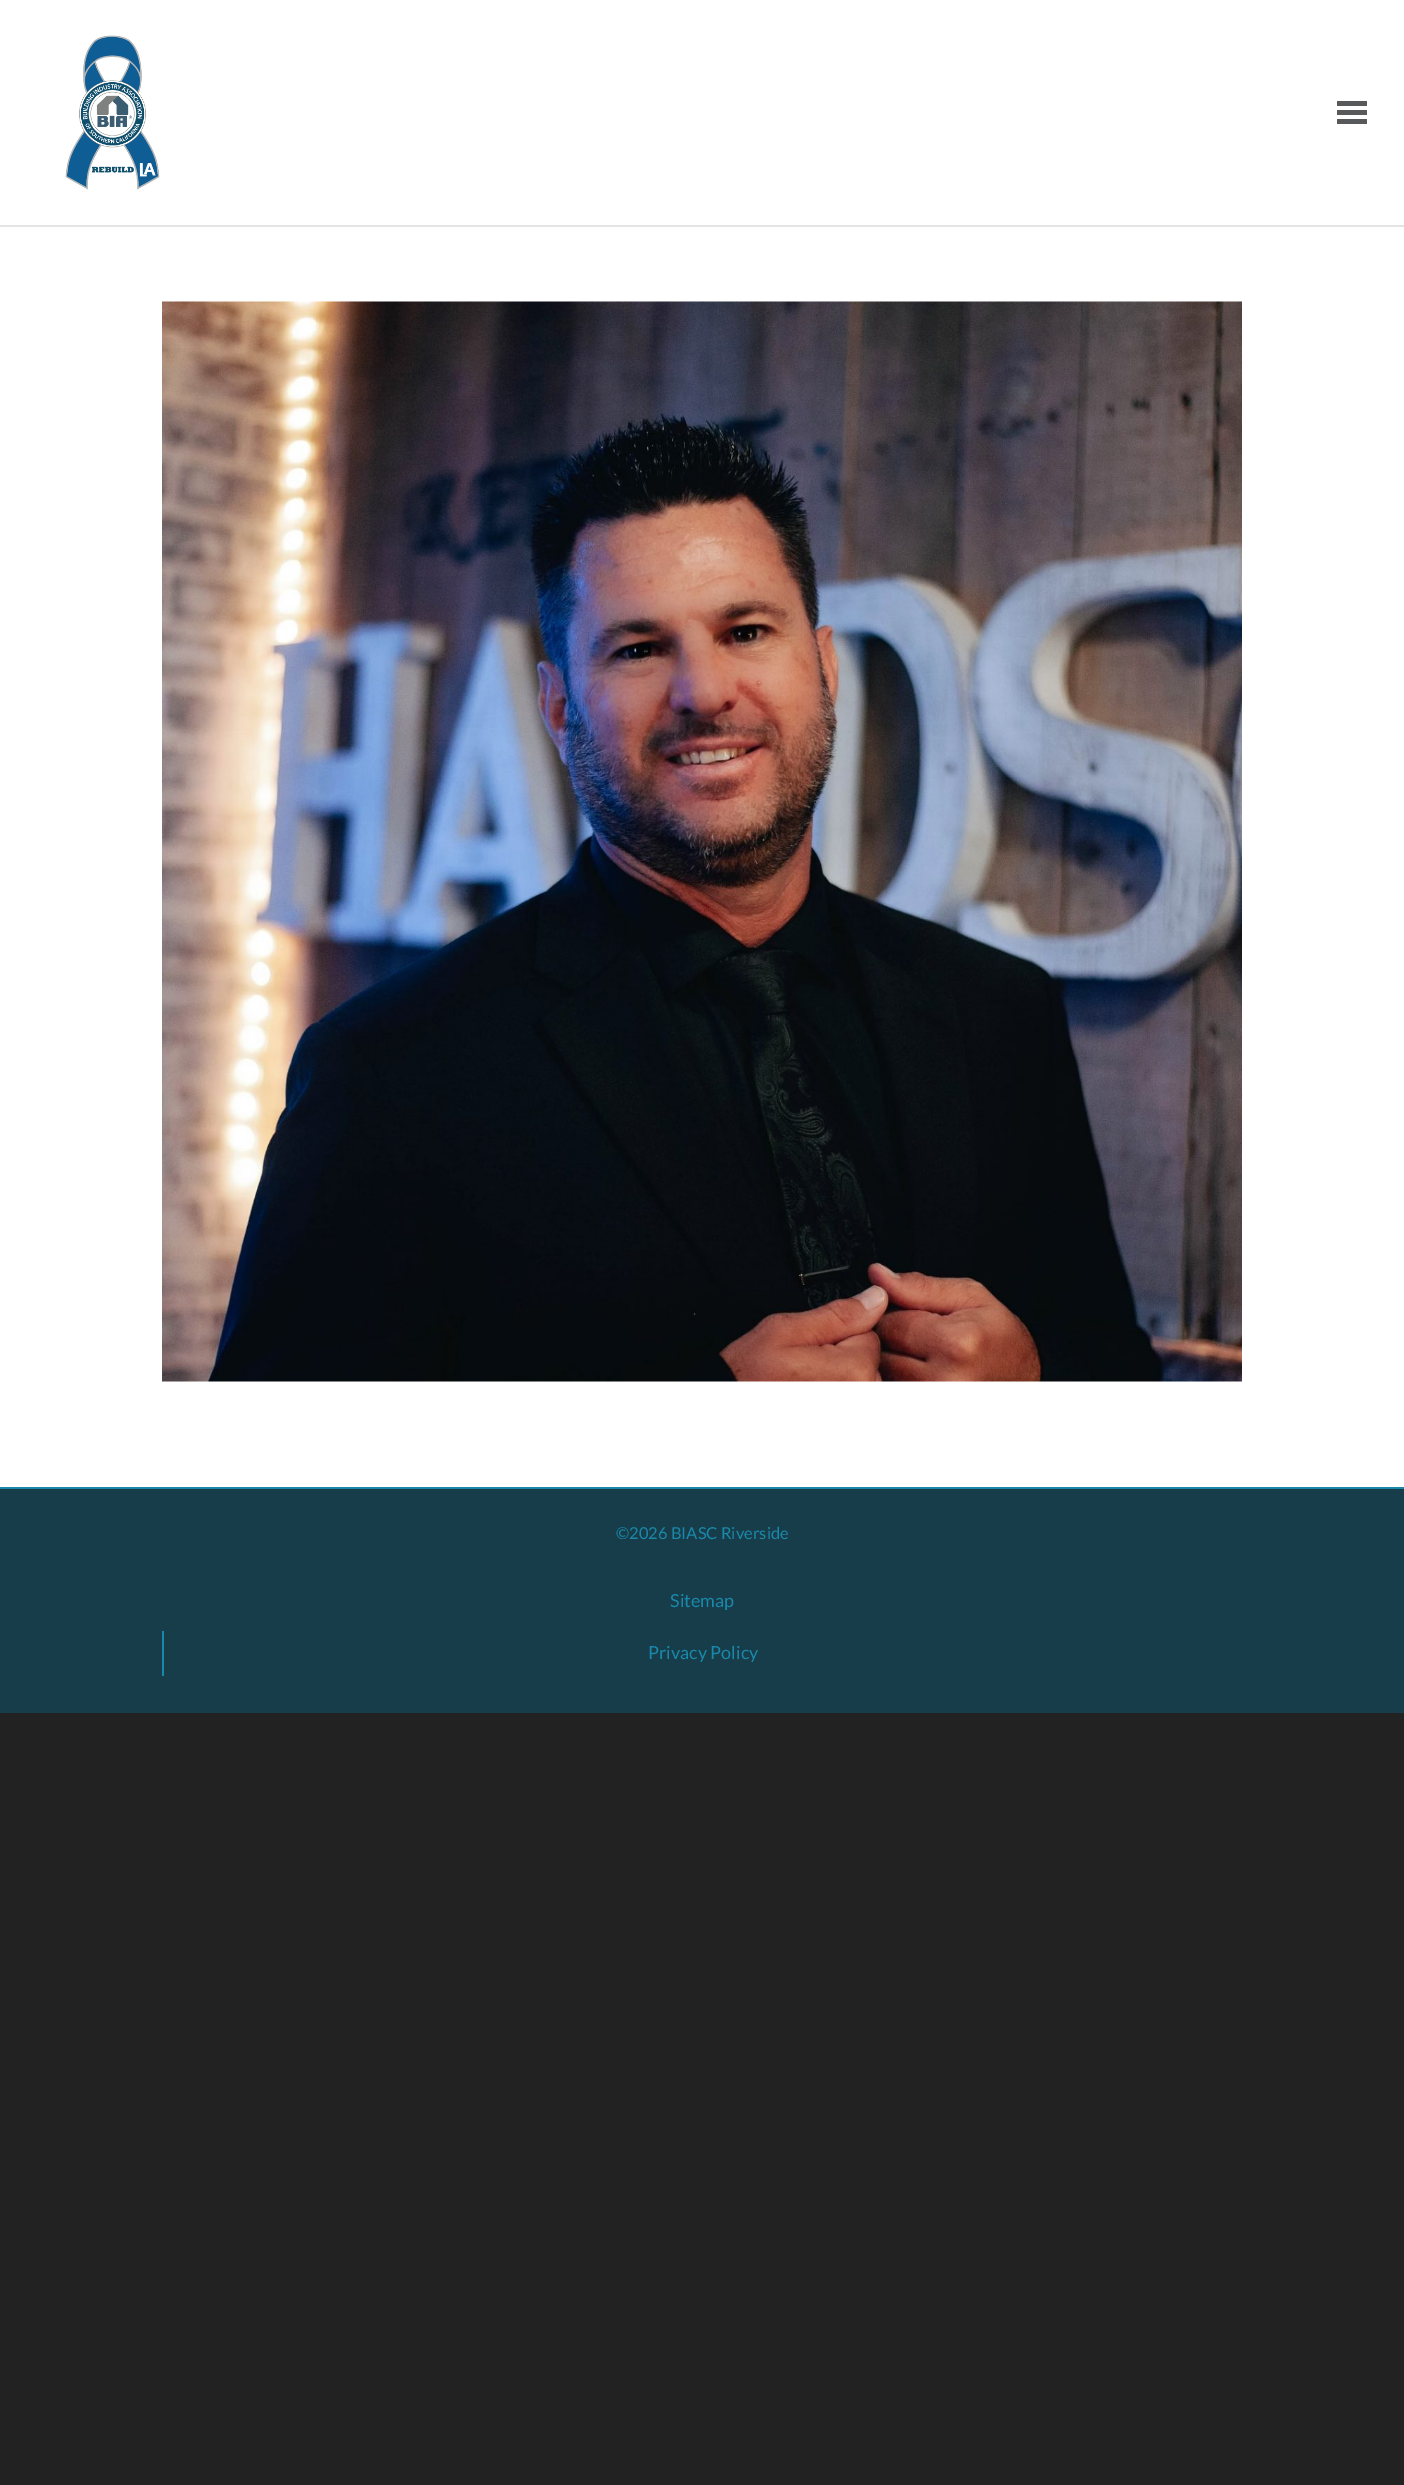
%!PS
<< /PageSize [1404 2485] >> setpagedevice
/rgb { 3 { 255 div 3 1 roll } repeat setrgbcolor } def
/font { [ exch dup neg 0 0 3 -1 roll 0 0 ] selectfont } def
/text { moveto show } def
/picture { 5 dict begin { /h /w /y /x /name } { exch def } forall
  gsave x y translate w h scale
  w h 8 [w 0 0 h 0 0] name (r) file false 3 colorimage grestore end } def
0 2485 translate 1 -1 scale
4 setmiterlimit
34 34 34 rgb
0 0 1404 2485 rectfill
255 255 255 rgb
0 0 1404 225 rectfill
228 228 228 rgb
0 225 1404 2 rectfill
(img_01.rgb) 65 35 95 155 picture
88 89 91 rgb
1337 110 30 5 rectfill
1337 101 30 5 rectfill
1337 119 30 5 rectfill
255 255 255 rgb
0 227 1404 1260 rectfill
(img_02.rgb) 162 301 1080 1081 picture
22 61 73 rgb
0 1489 1404 224 rectfill
26 136 170 rgb
0 1487 1404 2 rectfill
162 1631 2 45 rectfill
/Lato-Regular 16.5 font
(©2026 BIASC Riverside) 616 1539 text
/Lato-Regular 18 font
(Sitemap) 670 1607 text
(Privacy Policy) 648 1659 text
showpage
